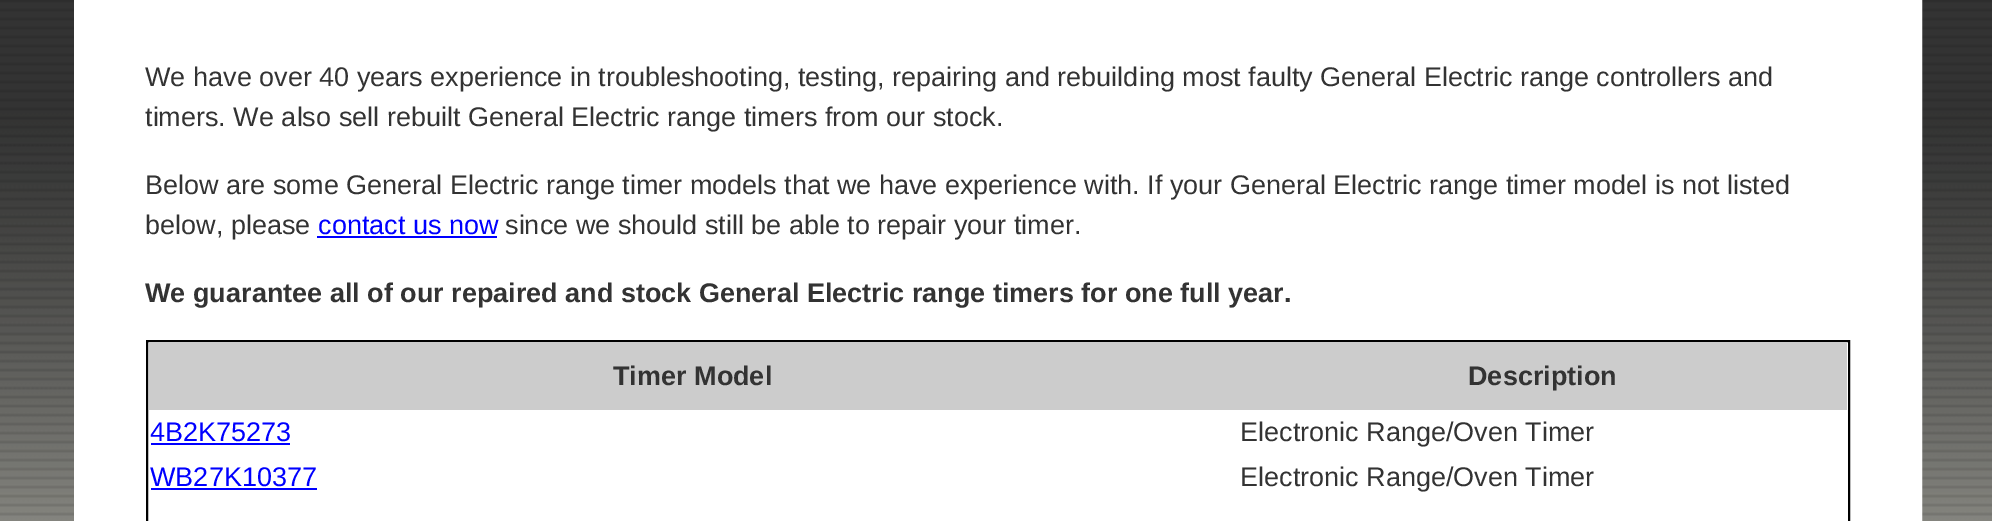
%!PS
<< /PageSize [1992 521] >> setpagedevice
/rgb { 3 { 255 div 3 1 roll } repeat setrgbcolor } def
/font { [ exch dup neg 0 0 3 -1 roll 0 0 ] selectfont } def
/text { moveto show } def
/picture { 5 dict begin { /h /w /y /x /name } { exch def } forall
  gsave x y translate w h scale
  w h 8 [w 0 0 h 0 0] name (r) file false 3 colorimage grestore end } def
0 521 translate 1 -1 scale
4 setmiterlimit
255 255 255 rgb
0 0 1992 521 rectfill
(img_01.rgb) 0 0 1992 521 picture
5 setlinewidth
76.5 -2.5 1843 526 rectstroke
79 0 1838 521 rectfill
0 0 255 rgb
317 236 180 2 rectfill
0 0 0 rgb
2 setlinewidth
147 341 1702 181 rectstroke
204 204 204 rgb
149 342 1698 68 rectfill
0 0 255 rgb
151 443 139 2 rectfill
151 488 166 2 rectfill
/LiberationSans-Regular 27 font
51 51 51 rgb
(We have over 40 years experience in troubleshooting, testing, repairing and rebuilding most faulty General Electric range controllers and) 145 86 text
(timers. We also sell rebuilt General Electric range timers from our stock.) 145 126 text
(Below are some General Electric range timer models that we have experience with. If your General Electric range timer model is not listed) 145 194 text
(below, please) 145 234 text
0 0 255 rgb
(contact us now) 318 234 text
51 51 51 rgb
(since we should still be able to repair your timer.) 505 234 text
/LiberationSans-Bold 27 font
(We guarantee all of our repaired and stock General Electric range timers for one full year.) 145 302 text
(Timer Model) 613 385 text
(Description) 1468 385 text
/LiberationSans-Regular 27 font
0 0 255 rgb
(4B2K75273) 150 441 text
51 51 51 rgb
(Electronic Range/Oven Timer) 1240 441 text
0 0 255 rgb
(WB27K10377) 150 486 text
51 51 51 rgb
(Electronic Range/Oven Timer) 1240 486 text
showpage
